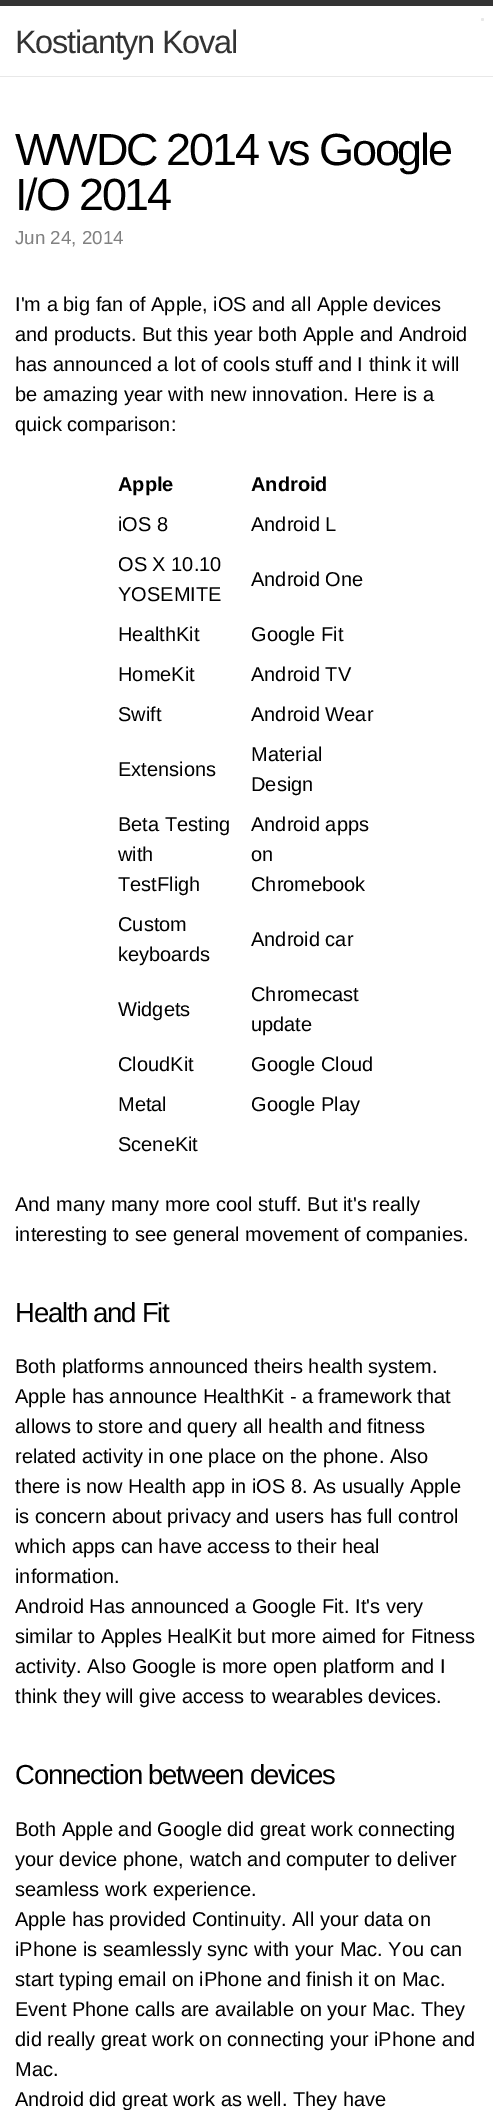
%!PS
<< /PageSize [493 2110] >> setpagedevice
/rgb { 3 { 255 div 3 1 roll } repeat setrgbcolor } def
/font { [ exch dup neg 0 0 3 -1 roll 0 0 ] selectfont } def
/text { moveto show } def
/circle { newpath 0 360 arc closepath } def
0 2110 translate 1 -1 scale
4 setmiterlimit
255 255 255 rgb
0 0 493 2110 rectfill
51 51 51 rgb
0 0 493 6 rectfill
232 232 232 rgb
0 76 493 1 rectfill
482.5 19.5 1.5 circle fill
/LiberationSans-Regular 32.5 font
51 51 51 rgb
15 53 moveto -1.25 0 (Kostiantyn Koval) ashow
/LiberationSans-Regular 45 font
0 0 0 rgb
15 165 moveto -2.2 0 (WWDC 2014 vs Google) ashow
15 210 moveto -2.2 0 (I/O 2014) ashow
/LiberationSans-Regular 18.75 font
129 129 129 rgb
(Jun 24, 2014) 15 244 text
/LiberationSans-Regular 20 font
0 0 0 rgb
(I'm a big fan of Apple, iOS and all Apple devices) 15 311 text
(and products. But this year both Apple and Android) 15 341 text
(has announced a lot of cools stuff and I think it will) 15 371 text
(be amazing year with new innovation. Here is a) 15 401 text
(quick comparison:) 15 431 text
/LiberationSans-Bold 20 font
(Apple) 118 491 text
(Android) 251 491 text
/LiberationSans-Regular 20 font
(iOS 8) 118 531 text
(Android L) 251 531 text
(OS X 10.10) 118 571 text
(YOSEMITE) 118 601 text
(Android One) 251 586 text
(HealthKit) 118 641 text
(Google Fit) 251 641 text
(HomeKit) 118 681 text
(Android TV) 251 681 text
(Swift) 118 721 text
(Android Wear) 251 721 text
(Extensions) 118 776 text
(Material) 251 761 text
(Design) 251 791 text
(Beta Testing) 118 831 text
(with) 118 861 text
(TestFligh) 118 891 text
(Android apps) 251 831 text
(on) 251 861 text
(Chromebook) 251 891 text
(Custom) 118 931 text
(keyboards) 118 961 text
(Android car) 251 946 text
(Widgets) 118 1016 text
(Chromecast) 251 1001 text
(update) 251 1031 text
(CloudKit) 118 1071 text
(Google Cloud) 251 1071 text
(Metal) 118 1111 text
(Google Play) 251 1111 text
(SceneKit) 118 1151 text
(And many many more cool stuff. But it's really) 15 1211 text
(interesting to see general movement of companies.) 15 1241 text
/LiberationSans-Regular 27.5 font
15 1322 moveto -1.25 0 (Health and Fit) ashow
/LiberationSans-Regular 20 font
(Both platforms announced theirs health system.) 15 1373 text
(Apple has announce HealthKit - a framework that) 15 1403 text
(allows to store and query all health and fitness) 15 1433 text
(related activity in one place on the phone. Also) 15 1463 text
(there is now Health app in iOS 8. As usually Apple) 15 1493 text
(is concern about privacy and users has full control) 15 1523 text
(which apps can have access to their heal) 15 1553 text
(information.) 15 1583 text
(Android Has announced a Google Fit. It's very) 15 1613 text
(similar to Apples HealKit but more aimed for Fitness) 15 1643 text
(activity. Also Google is more open platform and I) 15 1673 text
(think they will give access to wearables devices.) 15 1703 text
/LiberationSans-Regular 27.5 font
15 1784 moveto -1.25 0 (Connection between devices) ashow
/LiberationSans-Regular 20 font
(Both Apple and Google did great work connecting) 15 1836 text
(your device phone, watch and computer to deliver) 15 1866 text
(seamless work experience.) 15 1896 text
(Apple has provided Continuity. All your data on) 15 1926 text
(iPhone is seamlessly sync with your Mac. You can) 15 1956 text
(start typing email on iPhone and finish it on Mac.) 15 1986 text
(Event Phone calls are available on your Mac. They) 15 2016 text
(did really great work on connecting your iPhone and) 15 2046 text
(Mac.) 15 2076 text
(Android did great work as well. They have) 15 2106 text
showpage
